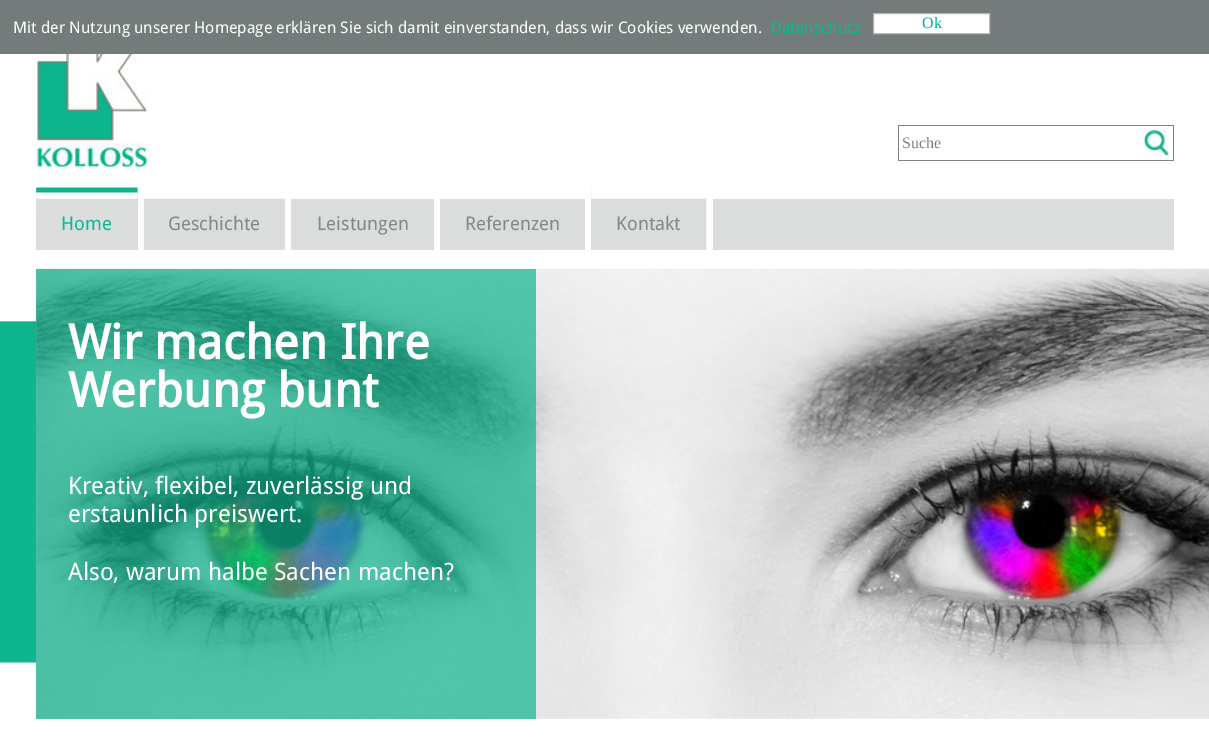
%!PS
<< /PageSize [1209 748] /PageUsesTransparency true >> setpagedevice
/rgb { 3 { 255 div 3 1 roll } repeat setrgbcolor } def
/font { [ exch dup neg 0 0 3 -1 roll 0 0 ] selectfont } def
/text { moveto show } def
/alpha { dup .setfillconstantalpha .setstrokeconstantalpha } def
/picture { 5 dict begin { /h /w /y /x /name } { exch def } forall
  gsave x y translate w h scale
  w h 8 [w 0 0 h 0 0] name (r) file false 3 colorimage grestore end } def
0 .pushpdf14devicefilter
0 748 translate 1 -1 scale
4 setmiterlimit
255 255 255 rgb
0 0 1209 748 rectfill
(img_01.rgb) 0 321 36 342 picture
115 124 123 rgb
0 0 1209 54 rectfill
255 255 255 rgb
873.5 13.5 moveto 116 0 rlineto 0 20 rlineto -116 0 rlineto closepath gsave fill grestore
183 183 183 rgb
stroke
130 130 130 rgb
898 125 276 1 rectfill
898 160 245 1 rectfill
898 125 1 36 rectfill
(img_02.rgb) 1142 127 27 31 picture
1173 125 1 36 rectfill
1143 160 31 1 rectfill
(img_03.rgb) 37 54 111 114 picture
219 221 220 rgb
713 199 461 51 rectfill
36 188 102 62 rectfill
(img_04.rgb) 36 187 102 12 picture
(img_05.rgb) 143 188 142 62 picture
291 199 143 51 rectfill
440 199 145 51 rectfill
(img_06.rgb) 591 188 116 62 picture
(img_07.rgb) 36 268 1173 451 picture
0.7 alpha
14 180 141 rgb
36 269 500 450 rectfill
/DroidSans-Regular 16 font
1 alpha
255 255 255 rgb
(Mit der Nutzung unserer Homepage erklären Sie sich damit einverstanden, dass wir Cookies verwenden.) 13 33 text
9 186 144 rgb
(Datenschutz) 771 33 text
/LiberationSerif-Regular 16 font
0 164 163 rgb
(Ok) 922 28 text
129 130 132 rgb
(Suche) 902 148 text
/DroidSans-Regular 18.75 font
9 186 144 rgb
(Home) 61 230 text
134 136 135 rgb
(Geschichte) 168 230 text
(Leistungen) 317 230 text
(Referenzen) 465 230 text
(Kontakt) 616 230 text
/DroidSans-Bold 48 font
255 255 255 rgb
(Wir machen Ihre) 68 359 text
(Werbung bunt) 68 407 text
/DroidSans-Regular 24 font
(Kreativ, flexibel, zuverlässig und) 68 494 text
(erstaunlich preiswert.) 68 522 text
(Also, warum halbe Sachen machen?) 68 580 text
.poppdf14devicefilter showpage
